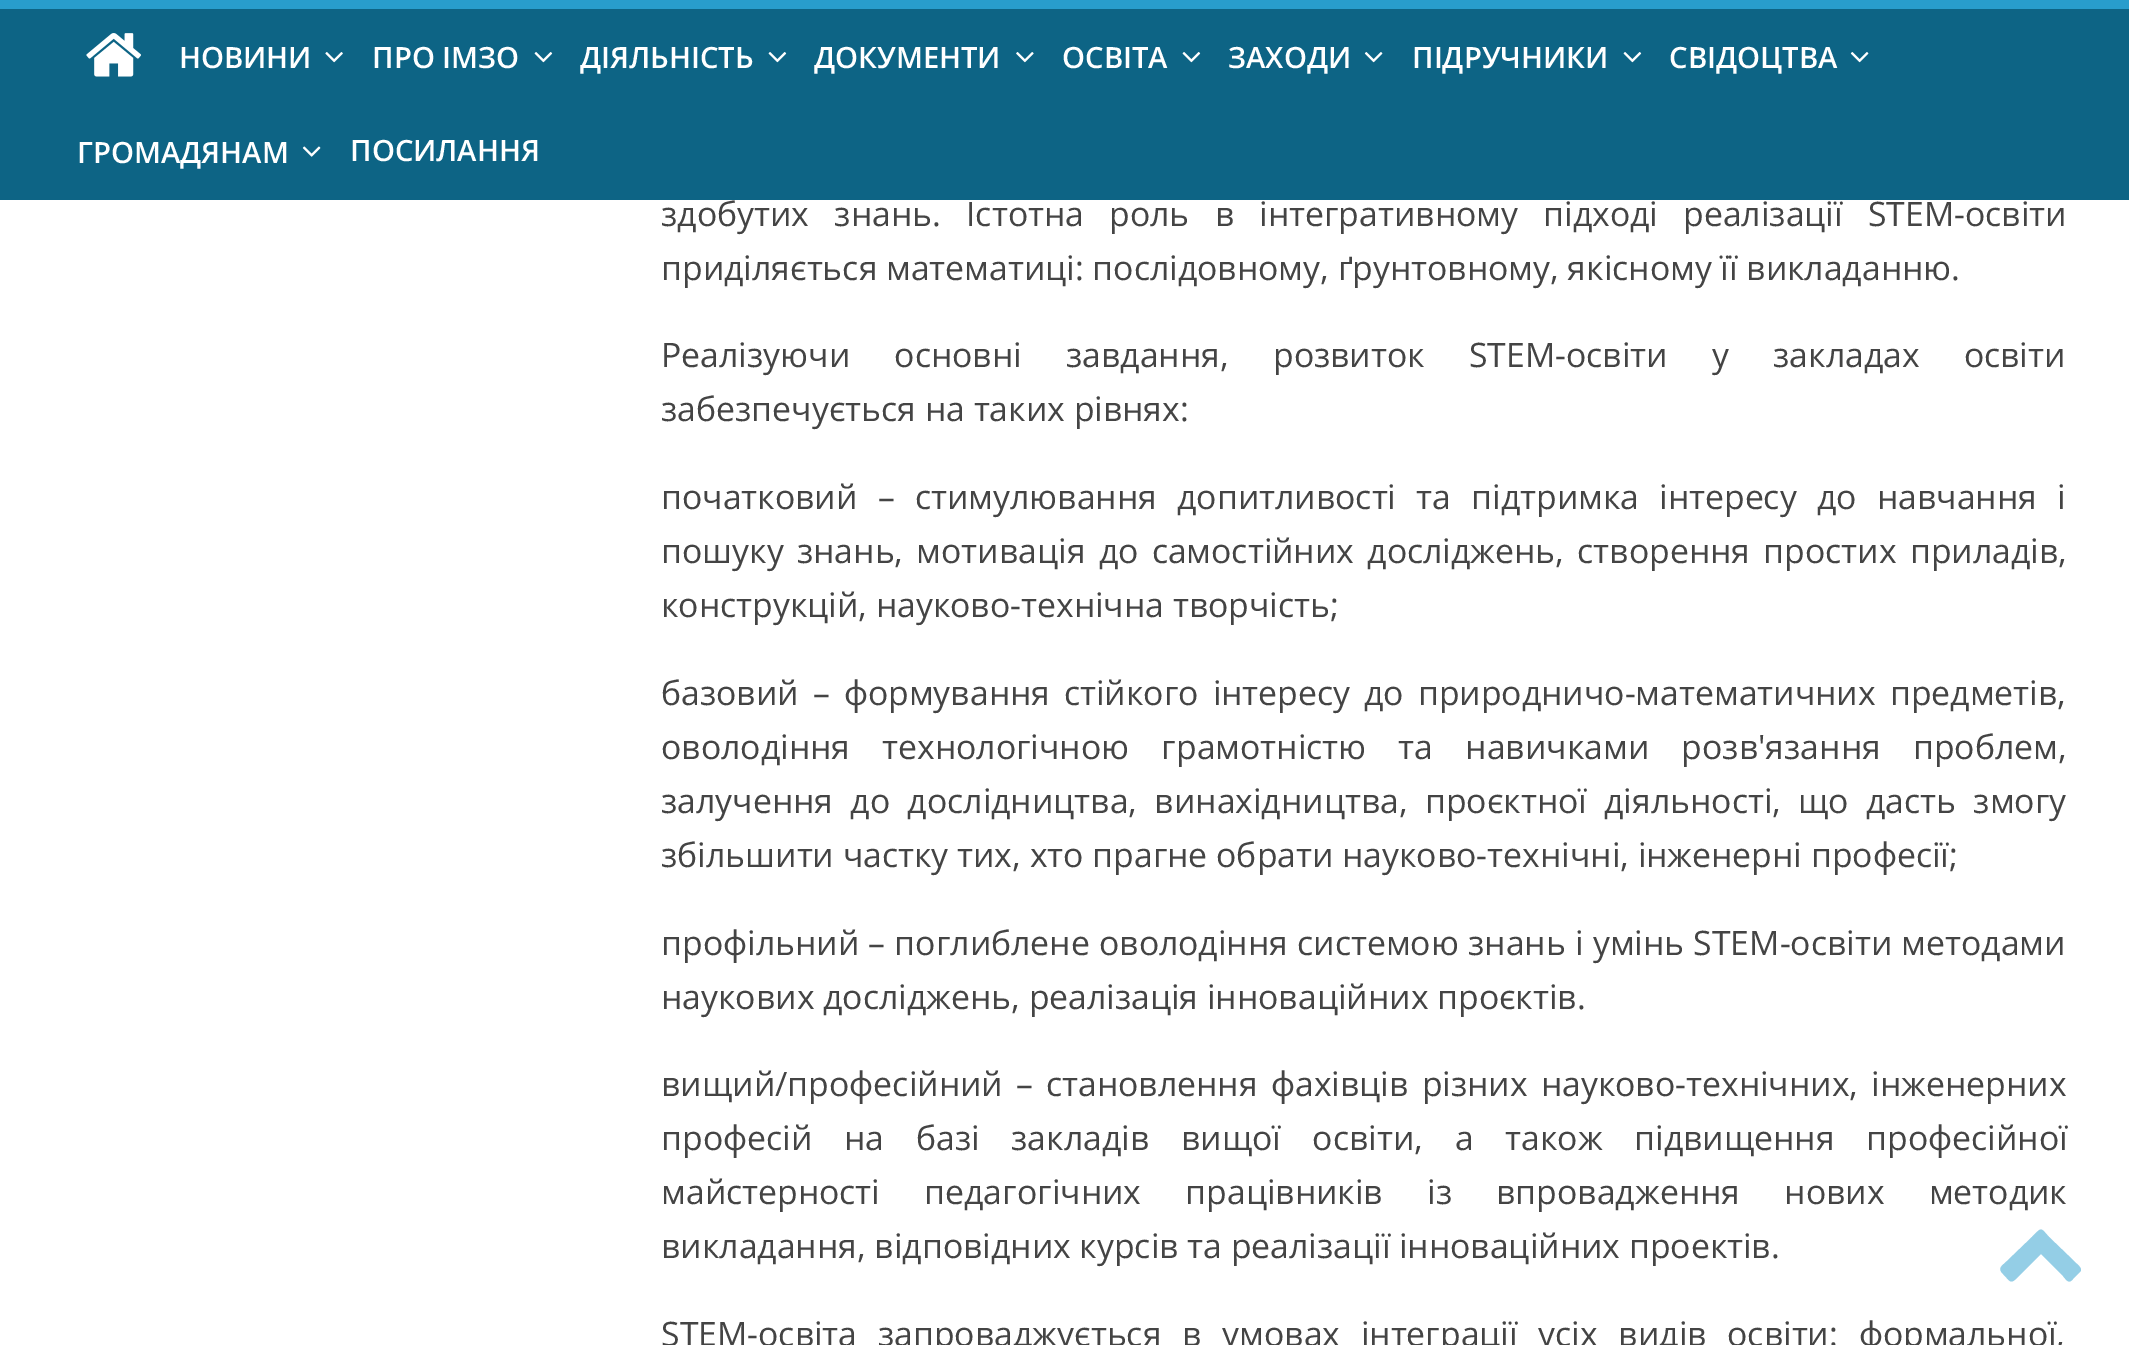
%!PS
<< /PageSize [2129 1345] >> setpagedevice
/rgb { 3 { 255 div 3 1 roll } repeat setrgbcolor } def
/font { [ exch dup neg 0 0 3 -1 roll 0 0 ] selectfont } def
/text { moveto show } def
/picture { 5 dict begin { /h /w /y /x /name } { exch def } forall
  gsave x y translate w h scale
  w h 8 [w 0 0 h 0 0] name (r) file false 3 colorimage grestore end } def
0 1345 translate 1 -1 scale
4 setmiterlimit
255 255 255 rgb
0 0 2129 1345 rectfill
13 100 133 rgb
0 9 2129 191 rectfill
40 157 204 rgb
0 0 2129 9 rectfill
(img_01.rgb) 86 33 55 44 picture
(img_02.rgb) 325 52 18 11 picture
(img_03.rgb) 534 52 19 11 picture
(img_03.rgb) 768 52 19 11 picture
(img_04.rgb) 1016 52 18 11 picture
(img_03.rgb) 1182 52 19 11 picture
(img_05.rgb) 1364 52 19 11 picture
(img_03.rgb) 1623 52 19 11 picture
(img_05.rgb) 1850 52 19 11 picture
(img_06.rgb) 302 146 19 11 picture
148 206 230 rgb
2080 1272 moveto -7 7 rlineto -4 5 -6 2 -10 -3 rcurveto -22 -22 rlineto -22 22 rlineto -9 9 -8 6 -16 -2 rcurveto -6 -6 -1 -8 4 -13 rcurveto 25 -24 rlineto 10 -10 8 -10 17 0 rcurveto 25 24 rlineto 1 2 10 7 6 11 rcurveto closepath fill
/OpenSans-SemiBold 29.25 font
255 255 255 rgb
(НОВИНИ) 179 68 text
(ПРО ІМЗО) 372 68 text
(ДІЯЛЬНІСТЬ) 580 68 text
(ДОКУМЕНТИ) 814 68 text
(ОСВІТА) 1062 68 text
(ЗАХОДИ) 1228 68 text
(ПІДРУЧНИКИ) 1412 68 text
(СВІДОЦТВА) 1669 68 text
(ГРОМАДЯНАМ) 77 163 text
(ПОСИЛАННЯ) 350 161 text
/OpenSans-Regular 33.75 font
68 68 68 rgb
661 226 moveto 16.5 0 32 (здобутих знань. Істотна роль в інтегративному підході реалізації STEM-освіти) widthshow
(приділяється математиці: послідовному, ґрунтовному, якісному її викладанню.) 661 280 text
661 367 moveto 35.5 0 32 (Реалізуючи основні завдання, розвиток STEM-освіти у закладах освіти) widthshow
(забезпечується на таких рівнях:) 661 421 text
661 509 moveto 11.5 0 32 (початковий – стимулювання допитливості та підтримка інтересу до навчання і) widthshow
661 563 moveto 4.5 0 32 (пошуку знань, мотивація до самостійних досліджень, створення простих приладів,) widthshow
(конструкцій, науково-технічна творчість;) 661 617 text
661 705 moveto 5.25 0 32 (базовий – формування стійкого інтересу до природничо-математичних предметів,) widthshow
661 759 moveto 23.5 0 32 (оволодіння технологічною грамотністю та навичками розв'язання проблем,) widthshow
661 813 moveto 8.5 0 32 (залучення до дослідництва, винахідництва, проєктної діяльності, що дасть змогу) widthshow
(збільшити частку тих, хто прагне обрати науково-технічні, інженерні професії;) 661 867 text
661 955 moveto 0.5 0 32 (профільний – поглиблене оволодіння системою знань і умінь STEM-освіти методами) widthshow
(наукових досліджень, реалізація інноваційних проєктів.) 661 1009 text
(вищий/професійний) 661 1096 text
(–) 1016 1096 text
1046 1096 moveto 4.5 0 32 (становлення фахівців різних науково-технічних, інженерних) widthshow
661 1150 moveto 23 0 32 (професій на базі закладів вищої освіти, а також підвищення професійної) widthshow
661 1204 moveto 35.5 0 32 (майстерності педагогічних працівників із впровадження нових методик) widthshow
(викладання, відповідних курсів та реалізації інноваційних проектів.) 661 1258 text
661 1346 moveto 12 0 32 (STEM-освіта запроваджується в умовах інтеграції усіх видів освіти: формальної,) widthshow
showpage
